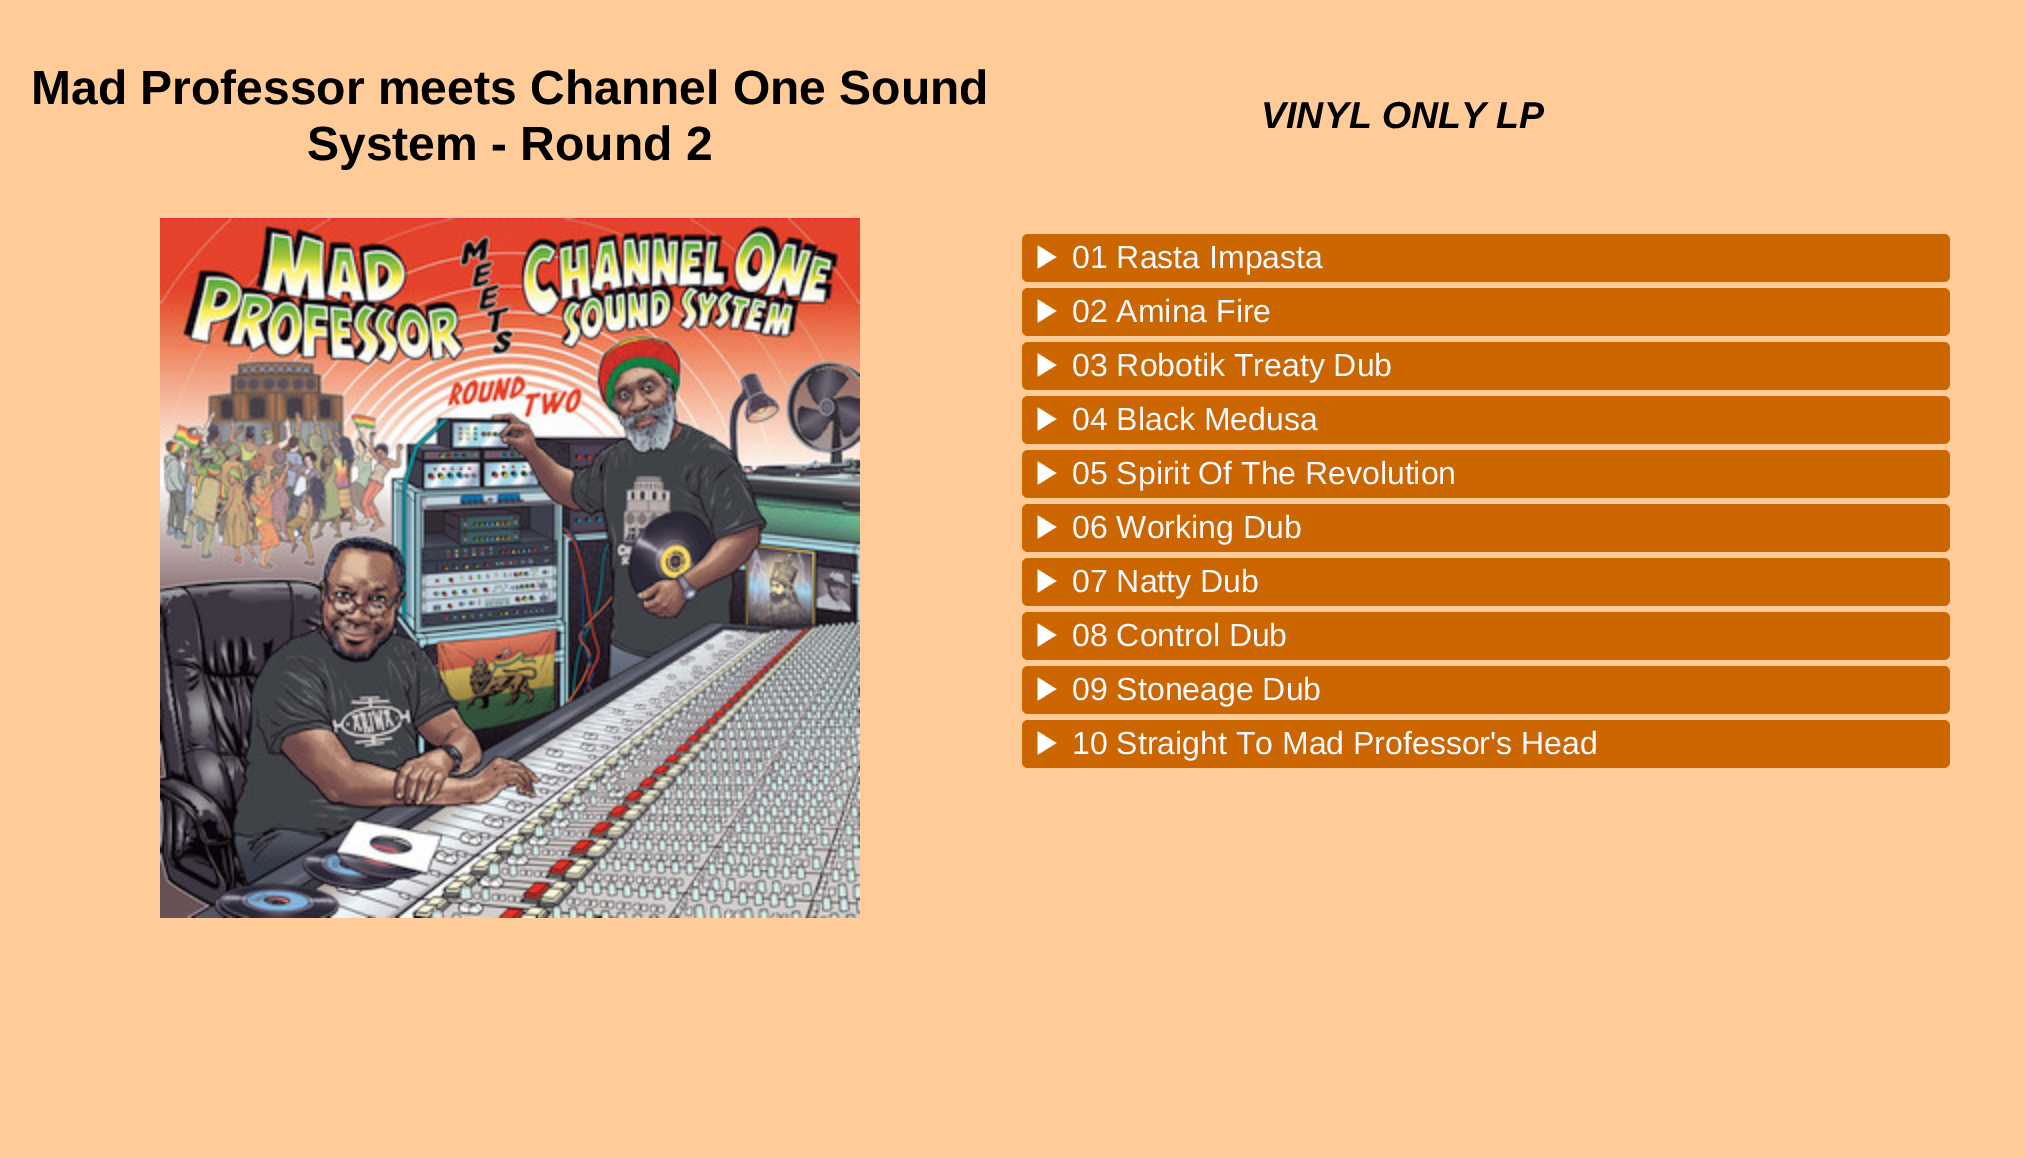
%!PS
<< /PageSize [2025 1158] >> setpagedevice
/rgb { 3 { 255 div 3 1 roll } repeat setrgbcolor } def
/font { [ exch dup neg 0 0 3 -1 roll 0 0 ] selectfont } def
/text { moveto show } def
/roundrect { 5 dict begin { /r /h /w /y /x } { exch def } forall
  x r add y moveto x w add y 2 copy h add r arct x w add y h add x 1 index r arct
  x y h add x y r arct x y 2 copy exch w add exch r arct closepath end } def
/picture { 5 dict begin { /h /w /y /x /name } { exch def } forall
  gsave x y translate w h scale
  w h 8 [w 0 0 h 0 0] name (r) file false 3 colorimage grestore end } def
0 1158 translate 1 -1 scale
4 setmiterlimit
255 204 153 rgb
0 0 2025 1158 rectfill
(img_01.rgb) 160 218 700 700 picture
204 102 0 rgb
1022 234 928 48 6 roundrect fill
(img_02.rgb) 1037 245 20 25 picture
1022 288 928 48 6 roundrect fill
(img_02.rgb) 1037 299 20 25 picture
1022 342 928 48 6 roundrect fill
(img_02.rgb) 1037 353 20 25 picture
1022 396 928 48 6 roundrect fill
(img_02.rgb) 1037 407 20 25 picture
1022 450 928 48 6 roundrect fill
(img_03.rgb) 1037 461 20 25 picture
1022 504 928 48 6 roundrect fill
(img_02.rgb) 1037 515 20 25 picture
1022 558 928 48 6 roundrect fill
(img_02.rgb) 1037 569 20 25 picture
1022 612 928 48 6 roundrect fill
(img_02.rgb) 1037 623 20 25 picture
1022 666 928 48 6 roundrect fill
(img_02.rgb) 1037 677 20 25 picture
1022 720 928 48 6 roundrect fill
(img_02.rgb) 1037 731 20 25 picture
/LiberationSans-Bold 48 font
0 0 0 rgb
(Mad Professor meets Channel One Sound) 31 104 text
(System - Round 2) 307 160 text
/LiberationSans-BoldItalic 37.5 font
(VINYL ONLY LP) 1261 128 text
/LiberationSans-Regular 32 font
246 249 255 rgb
(01 Rasta Impasta) 1072 268 text
(02 Amina Fire) 1072 322 text
(03 Robotik Treaty Dub) 1072 376 text
(04 Black Medusa) 1072 430 text
(05 Spirit Of The Revolution) 1072 484 text
(06 Working Dub) 1072 538 text
(07 Natty Dub) 1072 592 text
(08 Control Dub) 1072 646 text
(09 Stoneage Dub) 1072 700 text
(10 Straight To Mad Professor's Head) 1072 754 text
showpage
